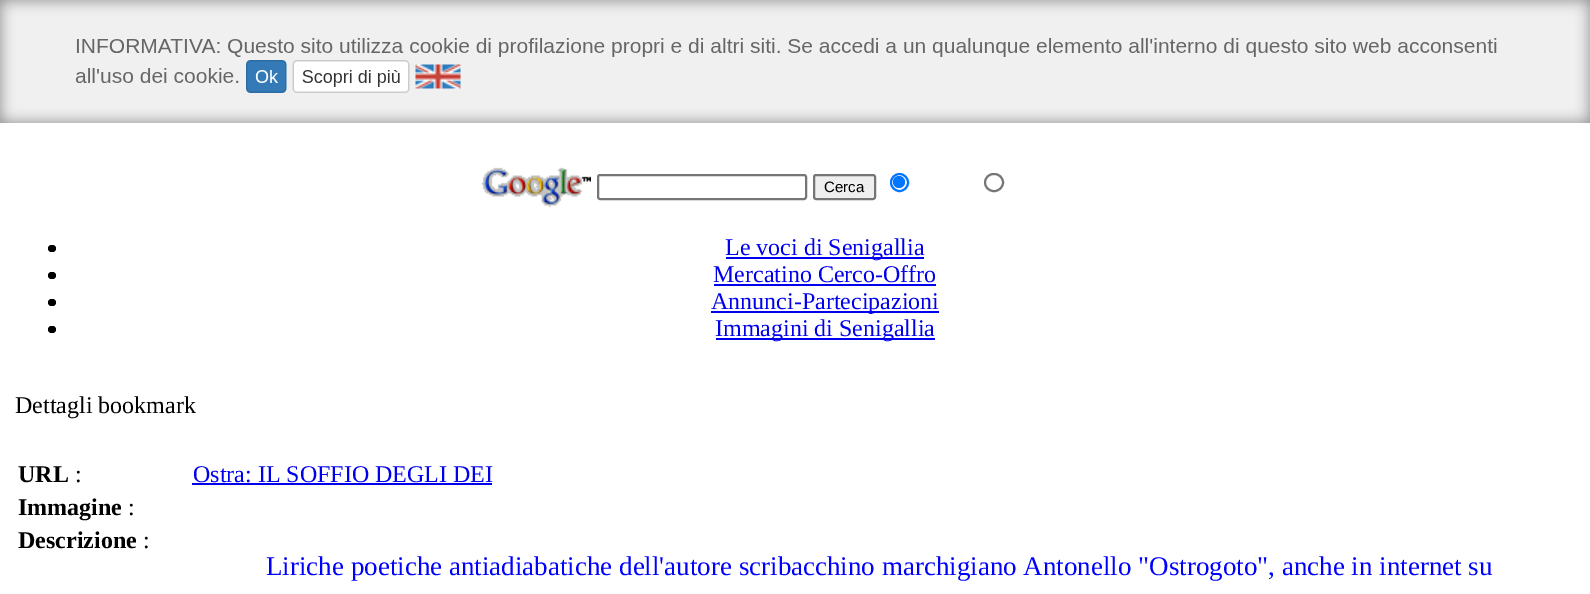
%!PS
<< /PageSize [1590 594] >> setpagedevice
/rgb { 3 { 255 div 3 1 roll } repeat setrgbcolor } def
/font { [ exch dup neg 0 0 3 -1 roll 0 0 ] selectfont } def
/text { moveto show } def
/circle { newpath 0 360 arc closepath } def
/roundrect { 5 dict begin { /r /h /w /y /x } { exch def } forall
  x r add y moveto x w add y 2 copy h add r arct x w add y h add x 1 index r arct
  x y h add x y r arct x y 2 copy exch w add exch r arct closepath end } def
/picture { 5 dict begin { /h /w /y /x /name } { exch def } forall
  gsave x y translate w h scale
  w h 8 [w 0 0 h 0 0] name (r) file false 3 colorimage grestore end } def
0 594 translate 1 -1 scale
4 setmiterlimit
255 255 255 rgb
0 0 1590 594 rectfill
(img_01.rgb) 0 0 1590 123 picture
(img_02.rgb) 481 167 110 41 picture
118 118 118 rgb
2 setlinewidth
598 175 208 24 2 roundrect stroke
239 239 239 rgb
814 175 61 24 2 roundrect gsave fill grestore
118 118 118 rgb
stroke
0 117 255 rgb
899.5 182.5 8.5 circle stroke
899 182 6 circle fill
118 118 118 rgb
985 174 18 17 8.5 roundrect stroke
0 0 0 rgb
48 245 8 7 3.5 roundrect fill
0 0 238 rgb
726 257 198 2 rectfill
0 0 0 rgb
48 272 8 7 3.5 roundrect fill
0 0 238 rgb
714 284 222 2 rectfill
0 0 0 rgb
48 299 8 7 3.5 roundrect fill
0 0 238 rgb
711 311 228 2 rectfill
0 0 0 rgb
48 326 8 7 3.5 roundrect fill
0 0 238 rgb
716 338 219 2 rectfill
192 483 300 2 rectfill
/LiberationSans-Regular 15 font
0 0 0 rgb
(Cerca) 824 192 text
/LiberationSerif-Regular 24 font
0 0 238 rgb
(Le voci di Senigallia) 725 255 text
(Mercatino Cerco-Offro) 713 282 text
(Annunci-Partecipazioni) 711 309 text
(Immagini di Senigallia) 715 336 text
0 0 0 rgb
(Dettagli bookmark) 15 413 text
/LiberationSerif-Bold 24 font
(URL) 18 482 text
/LiberationSerif-Regular 24 font
(:) 75 482 text
0 0 238 rgb
(Ostra: IL SOFFIO DEGLI DEI) 193 482 text
/LiberationSerif-Bold 24 font
0 0 0 rgb
(Immagine) 18 515 text
/LiberationSerif-Regular 24 font
(:) 128 515 text
/LiberationSerif-Bold 24 font
(Descrizione) 18 548 text
/LiberationSerif-Regular 24 font
(:) 143 548 text
/LiberationSerif-Regular 27 font
0 0 255 rgb
(Liriche poetiche antiadiabatiche dell'autore scribacchino marchigiano Antonello "Ostrogoto", anche in internet su) 266 575 text
showpage
